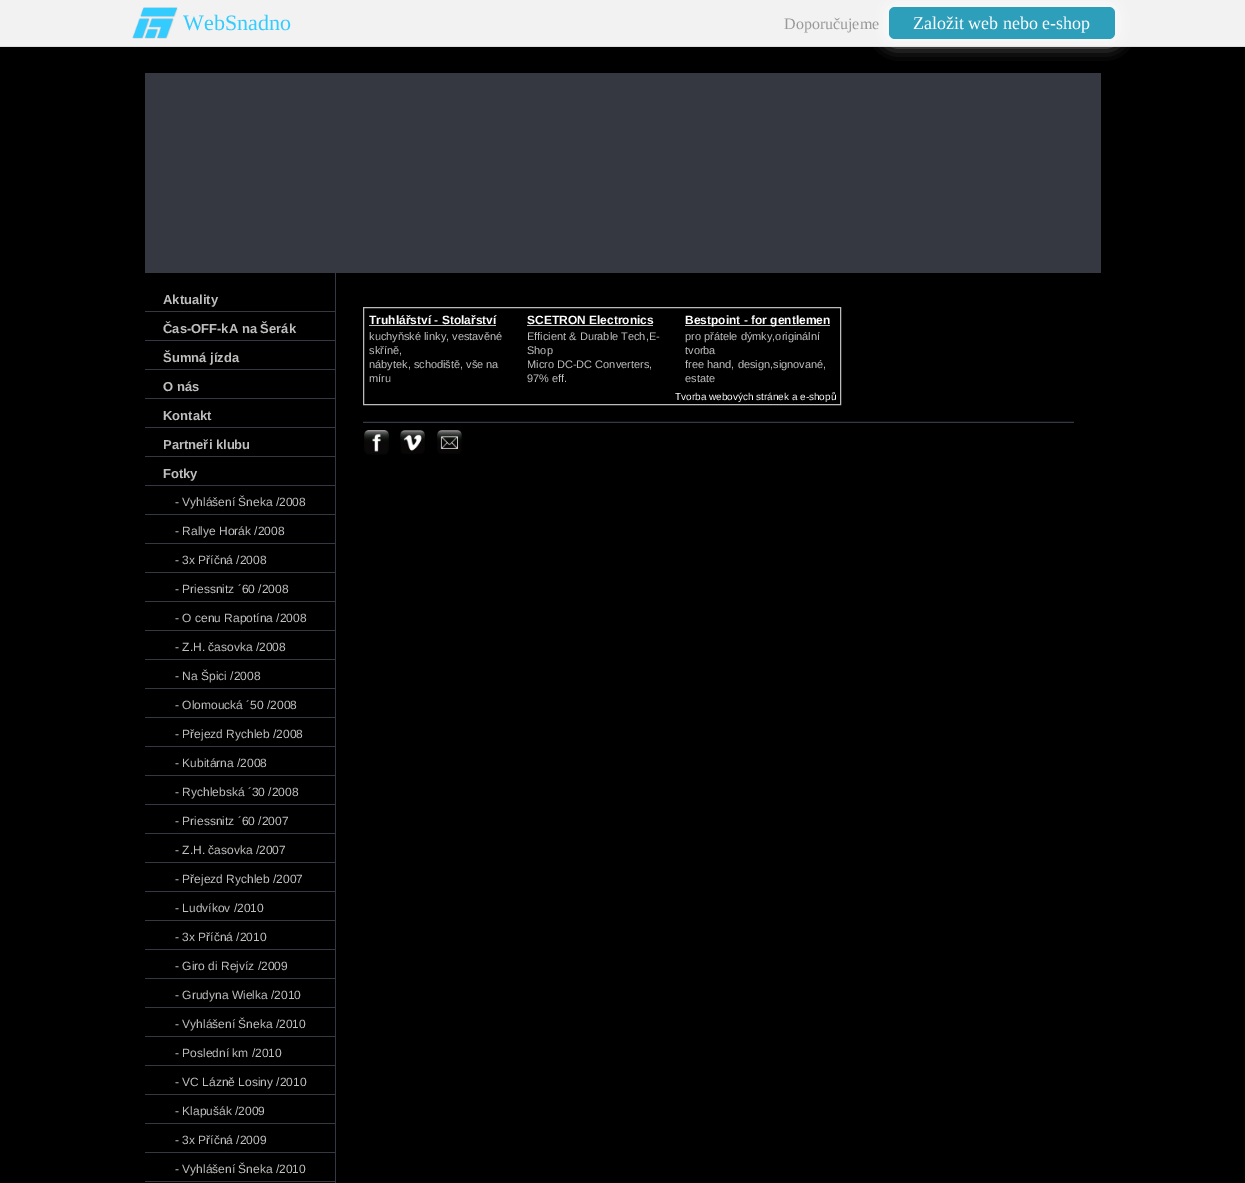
%!PS
<< /PageSize [1245 1183] /PageUsesTransparency true >> setpagedevice
/rgb { 3 { 255 div 3 1 roll } repeat setrgbcolor } def
/font { [ exch dup neg 0 0 3 -1 roll 0 0 ] selectfont } def
/text { moveto show } def
/alpha { dup .setfillconstantalpha .setstrokeconstantalpha } def
/roundrect { 5 dict begin { /r /h /w /y /x } { exch def } forall
  x r add y moveto x w add y 2 copy h add r arct x w add y h add x 1 index r arct
  x y h add x y r arct x y 2 copy exch w add exch r arct closepath end } def
/shadow { 12 dict begin { /a /b /q /h /w /y /x } { exch def } forall gsave /was 0 def
  9 -2 -9 { dup b mul 4 div /e exch def 1 sub .425 mul 2.718 exch exp 1 add a .99 .min exch div /now exch def
    1 1 now sub 1 was sub div sub alpha /was now def
    w h .min e 2 mul add 0 gt { x e sub y e sub w e 2 mul add h e 2 mul add
      q e add b .6 mul add w h .min 2 div e add .min 0 .max roundrect fill } if } for grestore end } def
/picture { 5 dict begin { /h /w /y /x /name } { exch def } forall
  gsave x y translate w h scale
  w h 8 [w 0 0 h 0 0] name (r) file false 3 colorimage grestore end } def
0 .pushpdf14devicefilter
0 1183 translate 1 -1 scale
4 setmiterlimit
0 0 0 rgb
0 0 1245 1183 rectfill
242 242 242 rgb
0 0 1245 46 rectfill
221 221 221 rgb
0 46 1245 1 rectfill
(img_01.rgb) 132 7 46 32 picture
255 255 255 rgb
885 3 234 40 10 8 0.75 shadow
45 159 187 rgb
889 7 226 32 6 roundrect fill
53 56 65 rgb
145 73 956 200 rectfill
145 311 190 1 rectfill
145 340 190 1 rectfill
145 369 190 1 rectfill
145 398 190 1 rectfill
145 427 190 1 rectfill
145 456 190 1 rectfill
145 485 190 1 rectfill
145 514 190 1 rectfill
145 543 190 1 rectfill
145 572 190 1 rectfill
145 601 190 1 rectfill
145 630 190 1 rectfill
145 659 190 1 rectfill
145 688 190 1 rectfill
145 717 190 1 rectfill
145 746 190 1 rectfill
145 775 190 1 rectfill
145 804 190 1 rectfill
145 833 190 1 rectfill
145 862 190 1 rectfill
145 891 190 1 rectfill
145 920 190 1 rectfill
145 949 190 1 rectfill
145 978 190 1 rectfill
145 1007 190 1 rectfill
145 1036 190 1 rectfill
145 1065 190 1 rectfill
145 1094 190 1 rectfill
145 1123 190 1 rectfill
145 1152 190 1 rectfill
145 1181 190 1 rectfill
335 273 1 910 rectfill
187 187 187 rgb
363.5 307.5 477 97 rectstroke
191 191 191 rgb
369 325 127 1 rectfill
527 325 126 1 rectfill
685 325 145 1 rectfill
12 15 24 rgb
363 421 711 1 rectfill
53 56 65 rgb
363 422 711 1 rectfill
(img_02.rgb) 364 430 25 25 picture
(img_03.rgb) 400 430 25 24 picture
(img_04.rgb) 437 430 25 24 picture
/LiberationSerif-Regular 22 font
52 203 255 rgb
(WebSnadno) 183 30 text
/LiberationSerif-Regular 16 font
153 153 153 rgb
(Doporučujeme) 784 29 text
/LiberationSerif-Regular 18 font
255 255 255 rgb
(Založit web nebo e-shop) 913 29 text
/LiberationSans-Bold 13 font
191 191 191 rgb
(Aktuality) 163 304 text
(Čas-OFF-kA na Šerák) 163 333 text
(Šumná jízda) 163 362 text
(O nás) 163 391 text
(Kontakt) 163 420 text
(Partneři klubu) 163 449 text
(Fotky) 163 478 text
/LiberationSans-Regular 12 font
(- Vyhlášení Šneka /2008) 175 506 text
(- Rallye Horák /2008) 175 535 text
(- 3x Příčná /2008) 175 564 text
(- Priessnitz ´60 /2008) 175 593 text
(- O cenu Rapotína /2008) 175 622 text
(- Z.H. časovka /2008) 175 651 text
(- Na Špici /2008) 175 680 text
(- Olomoucká ´50 /2008) 175 709 text
(- Přejezd Rychleb /2008) 175 738 text
(- Kubitárna /2008) 175 767 text
(- Rychlebská ´30 /2008) 175 796 text
(- Priessnitz ´60 /2007) 175 825 text
(- Z.H. časovka /2007) 175 854 text
(- Přejezd Rychleb /2007) 175 883 text
(- Ludvíkov /2010) 175 912 text
(- 3x Příčná /2010) 175 941 text
(- Giro di Rejvíz /2009) 175 970 text
(- Grudyna Wielka /2010) 175 999 text
(- Vyhlášení Šneka /2010) 175 1028 text
(- Poslední km /2010) 175 1057 text
(- VC Lázně Losiny /2010) 175 1086 text
(- Klapušák /2009) 175 1115 text
(- 3x Příčná /2009) 175 1144 text
(- Vyhlášení Šneka /2010) 175 1173 text
/LiberationSans-Bold 12 font
255 255 255 rgb
(Truhlářství - Stolařství) 369 324 text
/LiberationSans-Regular 11 font
191 191 191 rgb
(kuchyňské linky, vestavěné) 369 340 text
(skříně,) 369 354 text
(nábytek, schodiště, vše na) 369 368 text
(míru) 369 382 text
/LiberationSans-Bold 12 font
255 255 255 rgb
(SCETRON Electronics) 527 324 text
/LiberationSans-Regular 11 font
191 191 191 rgb
(Efficient & Durable Tech,E-) 527 340 text
(Shop) 527 354 text
(Micro DC-DC Converters,) 527 368 text
(97% eff.) 527 382 text
/LiberationSans-Bold 12 font
255 255 255 rgb
(Bestpoint - for gentlemen) 685 324 text
/LiberationSans-Regular 11 font
191 191 191 rgb
(pro přátele dýmky,originální) 685 340 text
(tvorba) 685 354 text
(free hand, design,signované,) 685 368 text
(estate) 685 382 text
/LiberationSans-Regular 10 font
255 255 255 rgb
(Tvorba webových stránek a e-shopů) 675 400 text
.poppdf14devicefilter showpage
